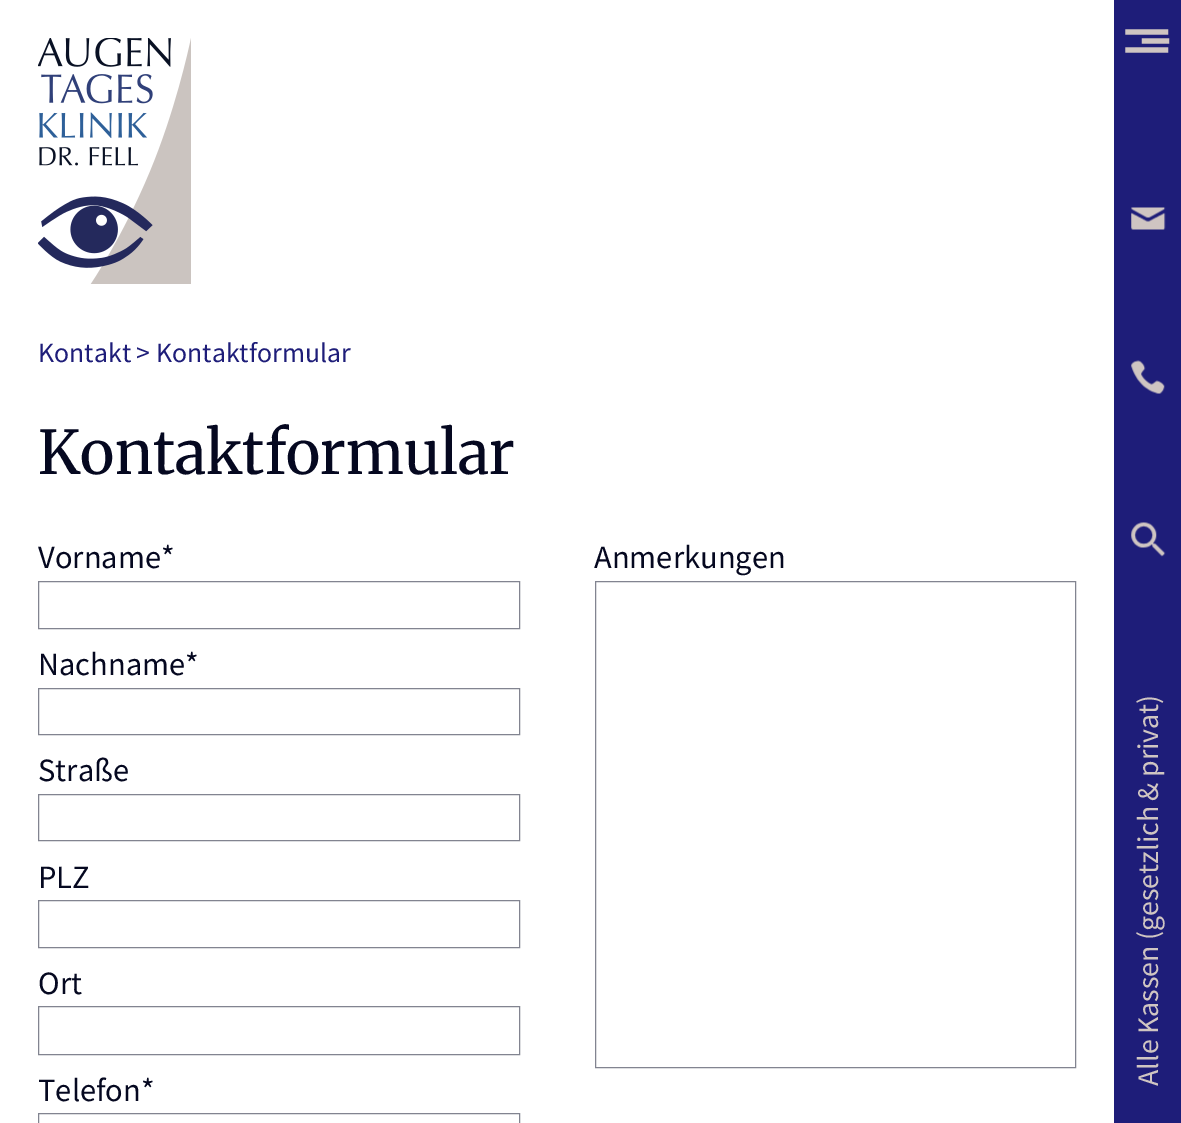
%!PS
<< /PageSize [1181 1123] >> setpagedevice
/rgb { 3 { 255 div 3 1 roll } repeat setrgbcolor } def
/font { [ exch dup neg 0 0 3 -1 roll 0 0 ] selectfont } def
/text { moveto show } def
/picture { 5 dict begin { /h /w /y /x /name } { exch def } forall
  gsave x y translate w h scale
  w h 8 [w 0 0 h 0 0] name (r) file false 3 colorimage grestore end } def
0 1123 translate 1 -1 scale
4 setmiterlimit
255 255 255 rgb
0 0 1181 1123 rectfill
(img_01.rgb) 38 38 153 246 picture
130 132 144 rgb
38.5 581.5 481 47 rectstroke
38.5 688.5 481 46 rectstroke
38.5 794.5 481 46 rectstroke
38.5 900.5 481 47 rectstroke
38.5 1006.5 481 48 rectstroke
38.5 1113.5 481 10 rectstroke
595.5 581.5 480 486 rectstroke
30 29 121 rgb
1114 0 67 1123 rectfill
207 197 194 rgb
5.2 setlinewidth
2 setlinecap
1128 32 moveto 37.5 0 rlineto 1128 50 moveto 37.5 0 rlineto 1144.5 41 moveto 22 0 rlineto stroke
(img_02.rgb) 1131 207 35 23 picture
(img_03.rgb) 1131 360 34 34 picture
(img_04.rgb) 1131 522 35 35 picture
/SourceSansPro-Regular 27.8 font
30 29 121 rgb
(Kontakt > Kontaktformular) 38 362 text
/Merriweather-Regular 60.25 font
5 8 32 rgb
(Kontaktformular) 38 474 text
/SourceSansPro-Regular 32.5 font
(Vorname*) 38 568 text
(Nachname*) 38 675 text
(Straße) 38 781 text
(PLZ) 38 888 text
(Ort) 38 994 text
(Telefon*) 38 1101 text
(Anmerkungen) 594 568 text
/SourceSansPro-Regular 29.9 font
207 197 194 rgb
gsave 1158 1086 translate -90 rotate 0 0 moveto -0.5 0 32 (Alle Kassen \(gesetzlich & privat\)) widthshow grestore
showpage
